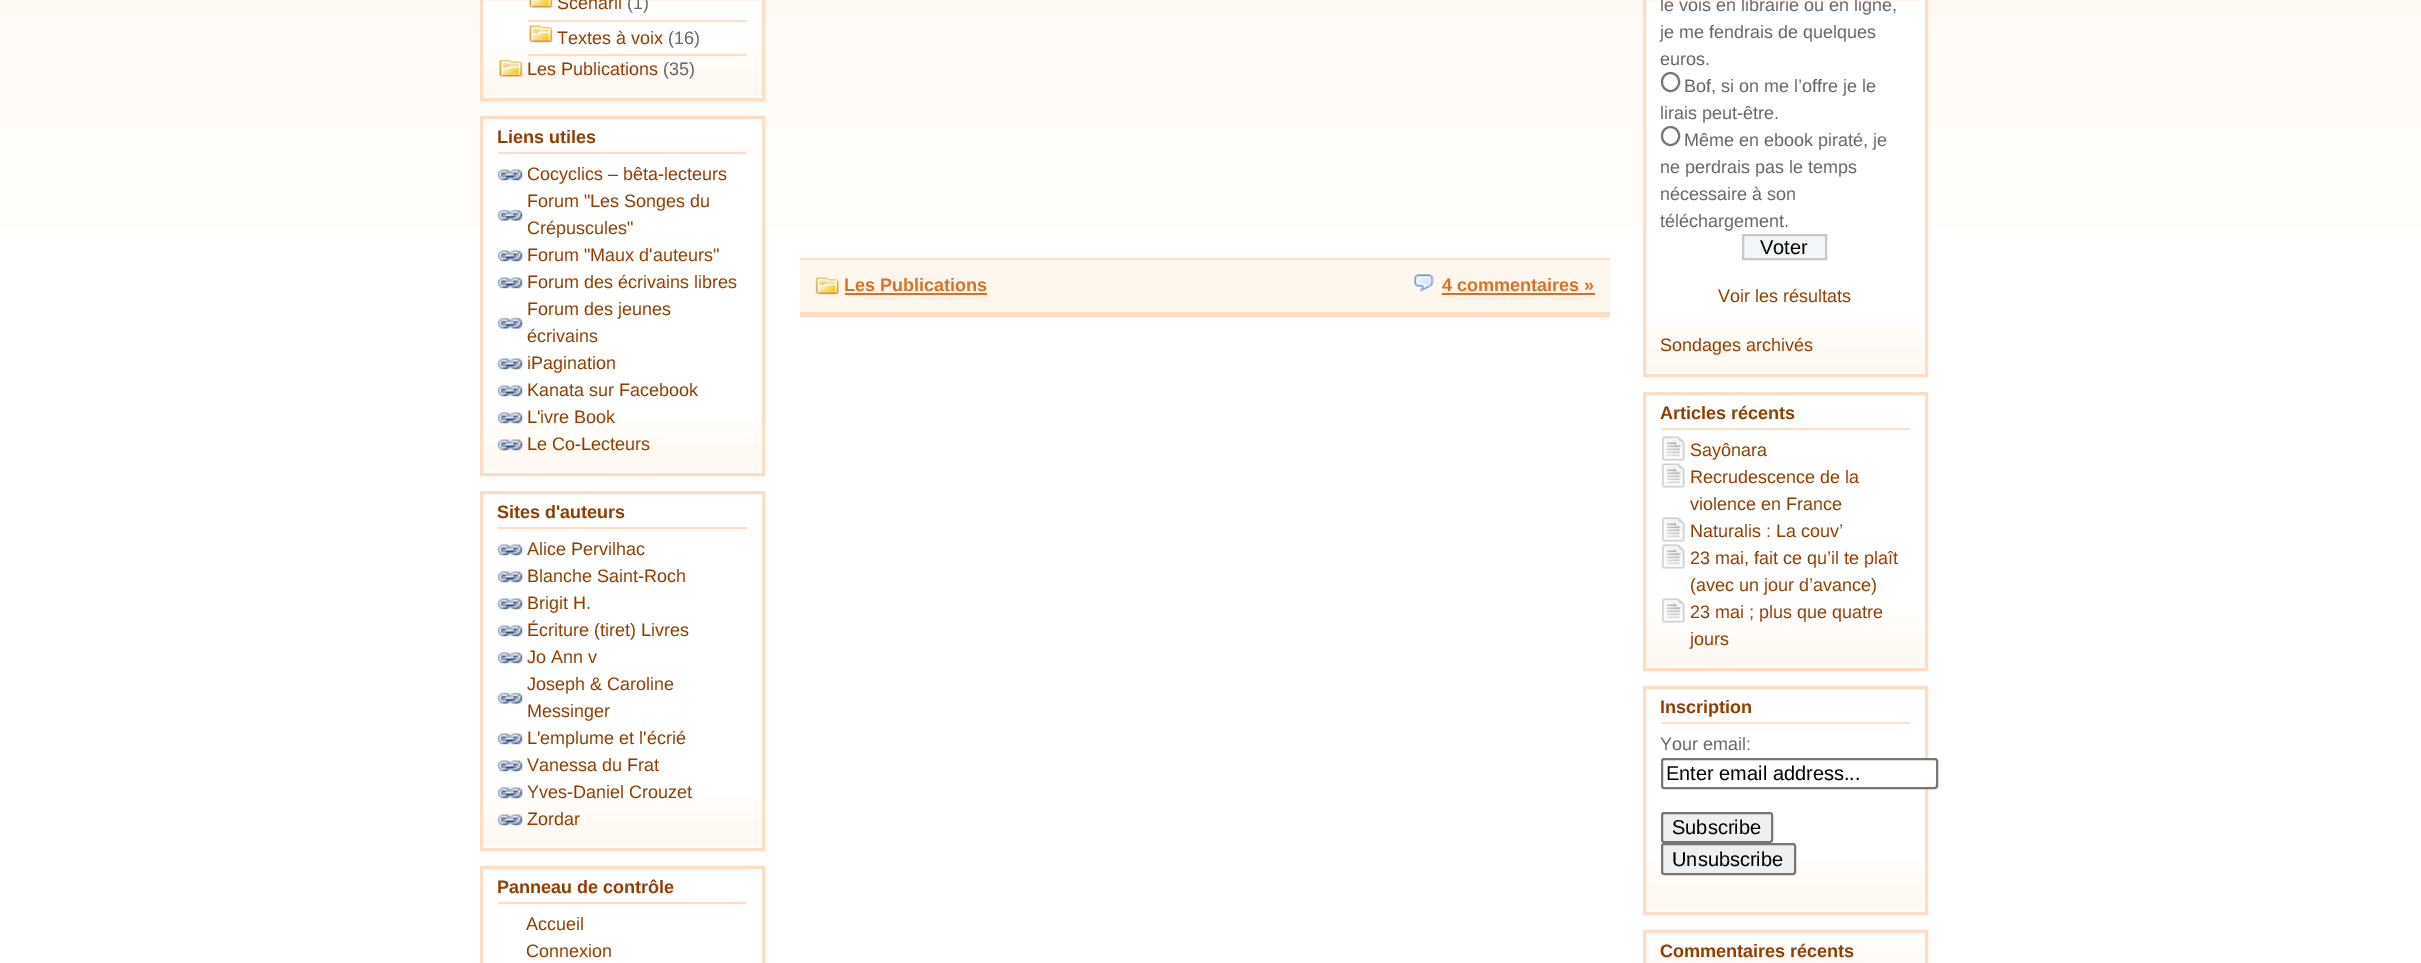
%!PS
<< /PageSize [2421 963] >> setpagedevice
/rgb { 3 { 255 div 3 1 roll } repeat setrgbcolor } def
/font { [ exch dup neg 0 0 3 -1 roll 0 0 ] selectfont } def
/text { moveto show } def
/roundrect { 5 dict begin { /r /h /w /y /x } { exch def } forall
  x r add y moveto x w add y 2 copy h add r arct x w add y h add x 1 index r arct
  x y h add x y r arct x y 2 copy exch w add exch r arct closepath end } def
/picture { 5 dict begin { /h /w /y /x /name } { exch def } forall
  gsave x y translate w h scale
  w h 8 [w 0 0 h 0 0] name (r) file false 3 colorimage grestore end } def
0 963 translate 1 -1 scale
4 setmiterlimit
255 255 255 rgb
0 0 2421 963 rectfill
(img_01.rgb) 0 0 2421 229 picture
483 0 279 98 rectfill
(img_02.rgb) 483 47 279 49 picture
255 221 197 rgb
3 setlinewidth
481.5 -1.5 282 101 rectstroke
(img_03.rgb) 529 0 24 8 picture
528 20 219 2 rectfill
(img_04.rgb) 529 25 24 18 picture
528 54 219 2 rectfill
(img_05.rgb) 499 59 24 18 picture
255 255 255 rgb
483 119 279 110 rectfill
(img_06.rgb) 483 421 279 50 picture
255 221 197 rgb
481.5 117.5 282 357 rectstroke
498 152 249 2 rectfill
(img_07.rgb) 498 169 25 12 picture
(img_08.rgb) 498 209 25 12 picture
(img_07.rgb) 498 250 25 12 picture
(img_07.rgb) 498 277 25 12 picture
(img_08.rgb) 498 317 25 12 picture
(img_07.rgb) 498 358 25 12 picture
(img_07.rgb) 498 385 25 12 picture
(img_09.rgb) 498 412 25 12 picture
(img_10.rgb) 498 439 25 12 picture
(img_02.rgb) 483 797 279 49 picture
481.5 492.5 282 357 rectstroke
498 527 249 2 rectfill
(img_07.rgb) 498 544 25 12 picture
(img_07.rgb) 498 571 25 12 picture
(img_07.rgb) 498 598 25 12 picture
(img_07.rgb) 498 625 25 12 picture
(img_07.rgb) 498 652 25 12 picture
(img_08.rgb) 498 692 25 12 picture
(img_07.rgb) 498 733 25 12 picture
(img_07.rgb) 498 760 25 12 picture
(img_11.rgb) 498 787 25 12 picture
(img_10.rgb) 498 814 25 12 picture
481.5 867.5 282 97 rectstroke
498 902 249 2 rectfill
255 246 238 rgb
800 260 810 52 rectfill
255 221 197 rgb
800 258 810 2 rectfill
800 312 810 5 rectfill
(img_12.rgb) 815 277 24 18 picture
219 112 37 rgb
845 293 142 2 rectfill
(img_13.rgb) 1413 274 22 18 picture
1442 293 153 2 rectfill
255 255 255 rgb
1646 0 279 229 rectfill
(img_14.rgb) 1642 323 283 49 picture
255 221 197 rgb
1644.5 -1.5 282 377 rectstroke
118 118 118 rgb
2 setlinewidth
1662 73 17 18 8.5 roundrect stroke
1662 127 17 18 8.5 roundrect stroke
243 246 248 rgb
1743 235 moveto 83 0 rlineto 0 24 rlineto -83 0 rlineto closepath gsave fill grestore
200 200 200 rgb
stroke
(img_14.rgb) 1642 617 283 49 picture
255 221 197 rgb
3 setlinewidth
1644.5 393.5 282 276 rectstroke
1661 428 249 2 rectfill
(img_15.rgb) 1661 436 24 25 picture
(img_15.rgb) 1661 463 24 25 picture
(img_15.rgb) 1661 517 24 25 picture
(img_15.rgb) 1661 544 24 25 picture
(img_16.rgb) 1661 598 24 25 picture
(img_17.rgb) 1642 861 283 50 picture
1644.5 687.5 282 226 rectstroke
1661 722 249 2 rectfill
255 255 255 rgb
1662 759 275 29 2 roundrect gsave fill grestore
118 118 118 rgb
2 setlinewidth
stroke
239 239 239 rgb
1662 813 110 29 2 roundrect gsave fill grestore
118 118 118 rgb
stroke
239 239 239 rgb
1662 844 133 30 2 roundrect gsave fill grestore
118 118 118 rgb
stroke
(img_18.rgb) 1646 939 279 24 picture
255 221 197 rgb
3 setlinewidth
1644.5 931.5 282 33 rectstroke
/LiberationSans-Regular 18 font
145 61 1 rgb
(Scénarii) 557 9 text
102 102 102 rgb
(\(1\)) 627 9 text
145 61 1 rgb
(Textes à voix) 557 44 text
102 102 102 rgb
(\(16\)) 668 44 text
145 61 1 rgb
(Les Publications) 527 75 text
102 102 102 rgb
(\(35\)) 663 75 text
/LiberationSans-Bold 18 font
145 61 1 rgb
(Liens utiles) 497 143 text
/LiberationSans-Regular 18 font
(Cocyclics – bêta-lecteurs) 527 180 text
(Forum "Les Songes du) 527 207 text
(Crépuscules") 527 234 text
(Forum "Maux d'auteurs") 527 261 text
(Forum des écrivains libres) 527 288 text
(Forum des jeunes) 527 315 text
(écrivains) 527 342 text
(iPagination) 527 369 text
(Kanata sur Facebook) 527 396 text
(L'ivre Book) 527 423 text
(Le Co-Lecteurs) 527 450 text
/LiberationSans-Bold 18 font
(Sites d'auteurs) 497 518 text
/LiberationSans-Regular 18 font
(Alice Pervilhac) 527 555 text
(Blanche Saint-Roch) 527 582 text
(Brigit H.) 527 609 text
(Écriture \(tiret\) Livres) 527 636 text
(Jo Ann v) 527 663 text
(Joseph & Caroline) 527 690 text
(Messinger) 527 717 text
(L'emplume et l'écrié) 527 744 text
(Vanessa du Frat) 527 771 text
(Yves-Daniel Crouzet) 527 798 text
(Zordar) 527 825 text
/LiberationSans-Bold 18 font
(Panneau de contrôle) 497 893 text
/LiberationSans-Regular 18 font
(Accueil) 526 930 text
(Connexion) 526 957 text
/LiberationSans-Bold 18 font
219 112 37 rgb
(Les Publications) 844 291 text
(4 commentaires ») 1442 291 text
/LiberationSans-Regular 18 font
102 102 102 rgb
(le vois en librairie ou en ligne,) 1660 11 text
(je me fendrais de quelques) 1660 38 text
(euros.) 1660 65 text
(Bof, si on me l’offre je le) 1684 92 text
(lirais peut-être.) 1660 119 text
(Même en ebook piraté, je) 1684 146 text
(ne perdrais pas le temps) 1660 173 text
(nécessaire à son) 1660 200 text
(téléchargement.) 1660 227 text
/LiberationSans-Regular 20 font
0 0 0 rgb
(Voter) 1760 254 text
/LiberationSans-Regular 18 font
145 61 1 rgb
(Voir les résultats) 1718 302 text
(Sondages archivés) 1660 351 text
/LiberationSans-Bold 18 font
(Articles récents) 1660 419 text
/LiberationSans-Regular 18 font
(Sayônara) 1690 456 text
(Recrudescence de la) 1690 483 text
(violence en France) 1690 510 text
(Naturalis : La couv’) 1690 537 text
(23 mai, fait ce qu’il te plaît) 1690 564 text
(\(avec un jour d’avance\)) 1690 591 text
(23 mai ; plus que quatre) 1690 618 text
(jours) 1690 645 text
/LiberationSans-Bold 18 font
(Inscription) 1660 713 text
/LiberationSans-Regular 18 font
102 102 102 rgb
(Your email:) 1660 750 text
/LiberationSans-Regular 20 font
0 0 0 rgb
(Enter email address...) 1666 780 text
(Subscribe) 1672 834 text
(Unsubscribe) 1672 866 text
/LiberationSans-Bold 18 font
145 61 1 rgb
(Commentaires récents) 1660 957 text
showpage
